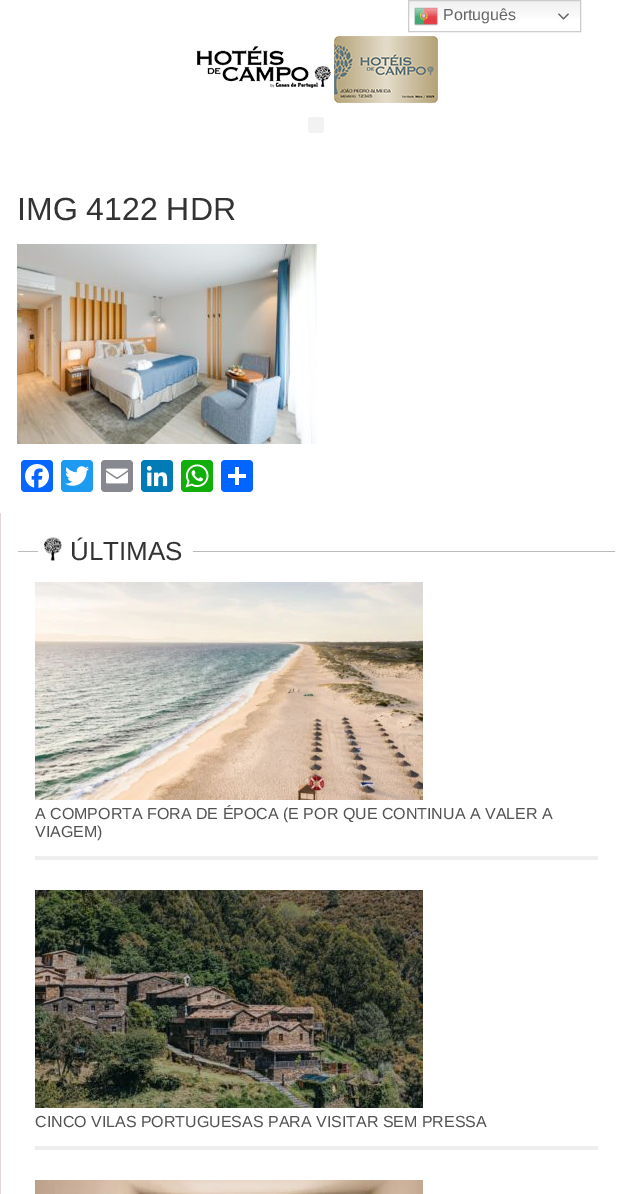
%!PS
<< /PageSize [632 1194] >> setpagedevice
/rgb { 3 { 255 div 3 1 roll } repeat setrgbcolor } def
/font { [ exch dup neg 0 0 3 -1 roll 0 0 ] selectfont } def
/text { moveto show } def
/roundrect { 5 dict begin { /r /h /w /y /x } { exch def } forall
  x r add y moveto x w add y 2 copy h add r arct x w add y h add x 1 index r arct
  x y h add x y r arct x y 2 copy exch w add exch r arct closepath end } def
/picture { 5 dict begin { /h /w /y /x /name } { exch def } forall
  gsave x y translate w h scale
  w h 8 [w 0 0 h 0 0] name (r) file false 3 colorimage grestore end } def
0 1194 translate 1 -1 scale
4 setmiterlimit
255 255 255 rgb
0 0 632 1194 rectfill
gsave 409 1 moveto 171 0 rlineto 0 18 rlineto -171 0 rlineto closepath clip newpath
<< /ShadingType 2 /ColorSpace /DeviceRGB /Coords [495 0 495 32] /Extend [true true] /Function << /FunctionType 3 /Domain [0 1] /Functions [<< /FunctionType 2 /Domain [0 1] /C0 [0.937 0.937 0.937] /C1 [1 1 1] /N 1 >> << /FunctionType 2 /Domain [0 1] /C0 [1 1 1] /C1 [1 1 1] /N 1 >>] /Bounds [0.7] /Encode [0 1 0 1] >> >> shfill grestore
204 204 204 rgb
408.5 0.5 172 31 rectstroke
(img_01.rgb) 414 7 24 19 picture
(img_02.rgb) 558 13 11 7 picture
(img_03.rgb) 197 36 241 67 picture
242 242 242 rgb
308 117 16 16 3 roundrect fill
(img_04.rgb) 17 244 300 200 picture
8 102 255 rgb
21 460 32 32 4 roundrect fill
(img_05.rgb) 25 464 24 24 picture
29 155 240 rgb
61 460 32 32 4 roundrect fill
(img_06.rgb) 65 466 24 20 picture
136 137 144 rgb
101 460 32 32 4 roundrect fill
(img_07.rgb) 106 468 22 16 picture
0 123 181 rgb
141 460 32 32 4 roundrect fill
(img_08.rgb) 146 465 22 22 picture
18 175 10 rgb
181 460 32 32 4 roundrect fill
(img_09.rgb) 185 464 24 24 picture
1 102 255 rgb
221 460 32 32 4 roundrect fill
255 255 255 rgb
235 467 4 18 rectfill
228 474 18 4 rectfill
228 214 214 rgb
0 513 1 681 rectfill
187 187 187 rgb
18 551 597 1 rectfill
255 255 255 rgb
38 551 155 1 rectfill
(img_10.rgb) 44 537 18 24 picture
(img_11.rgb) 35 582 388 218 picture
238 238 238 rgb
35 856 563 4 rectfill
(img_12.rgb) 35 890 388 218 picture
35 1146 563 4 rectfill
(img_13.rgb) 35 1180 388 14 picture
/LiberationSans-Regular 16 font
102 102 102 rgb
(Português) 443 20 text
/LiberationSans-Regular 32 font
51 51 51 rgb
(IMG 4122 HDR) 17 220 text
/LiberationSans-Regular 26 font
(ÚLTIMAS) 70 560 text
/LiberationSans-Regular 16 font
83 83 83 rgb
(A COMPORTA FORA DE ÉPOCA \(E POR QUE CONTINUA A VALER A) 35 819 text
(VIAGEM\)) 35 837 text
(CINCO VILAS PORTUGUESAS PARA VISITAR SEM PRESSA) 35 1127 text
showpage
